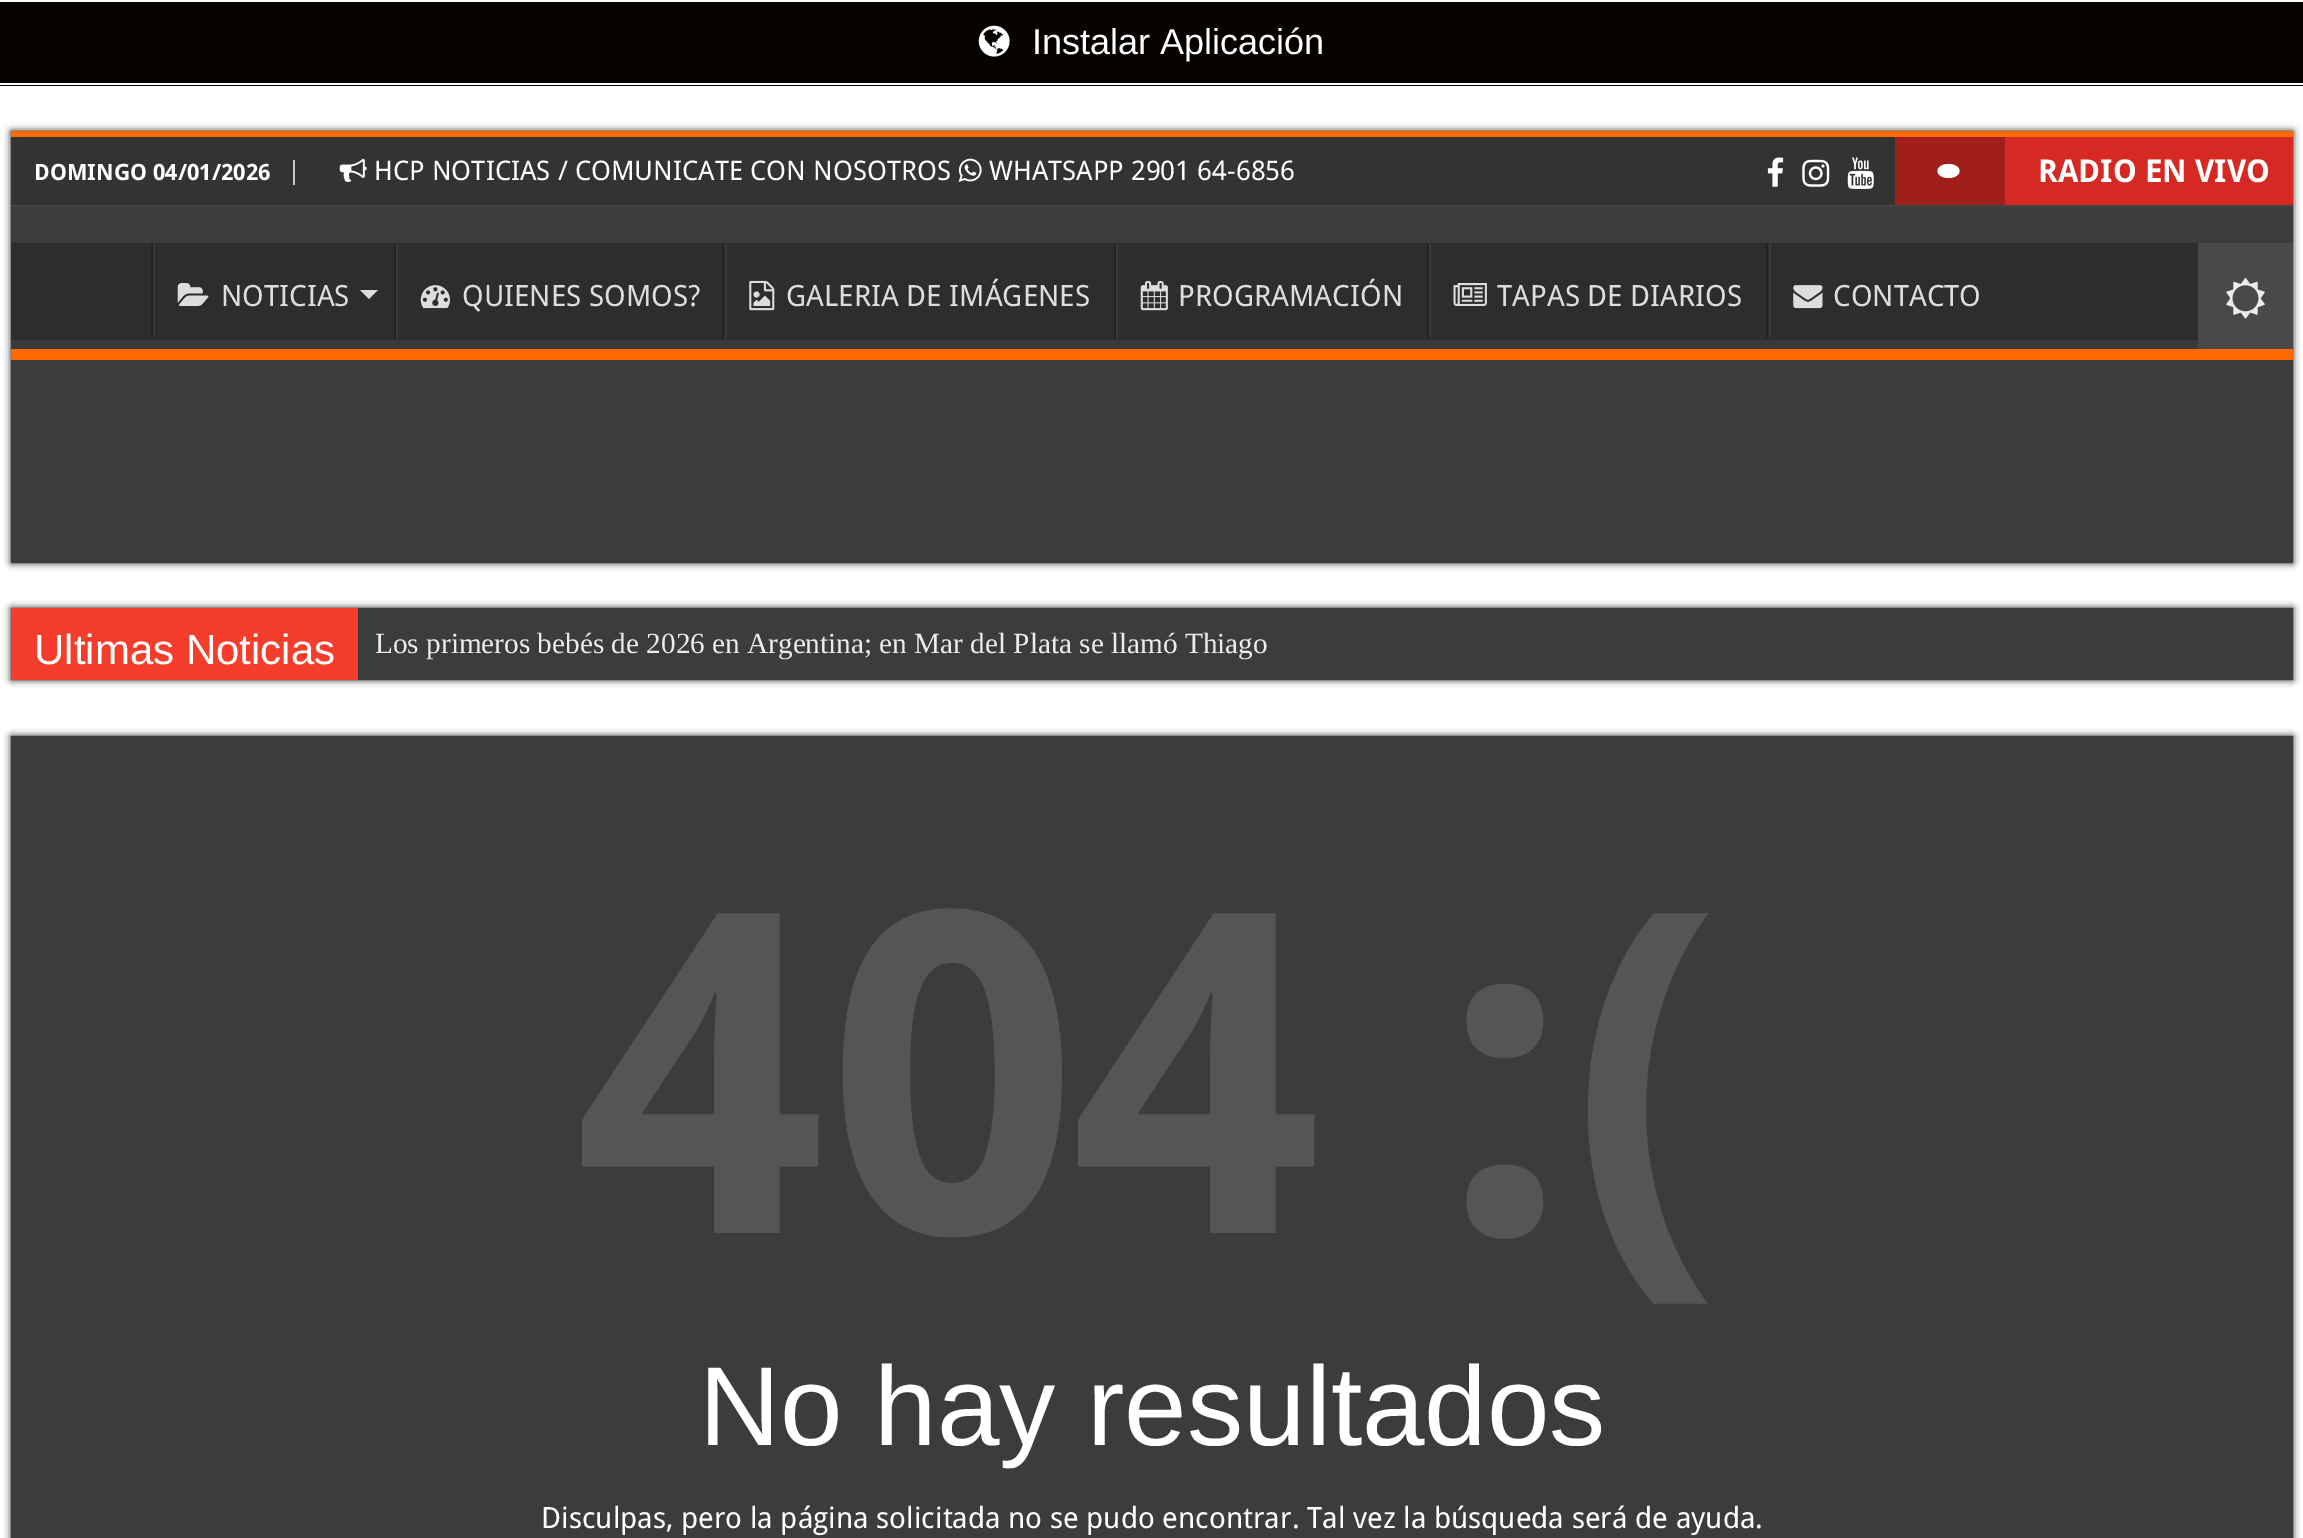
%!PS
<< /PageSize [2303 1538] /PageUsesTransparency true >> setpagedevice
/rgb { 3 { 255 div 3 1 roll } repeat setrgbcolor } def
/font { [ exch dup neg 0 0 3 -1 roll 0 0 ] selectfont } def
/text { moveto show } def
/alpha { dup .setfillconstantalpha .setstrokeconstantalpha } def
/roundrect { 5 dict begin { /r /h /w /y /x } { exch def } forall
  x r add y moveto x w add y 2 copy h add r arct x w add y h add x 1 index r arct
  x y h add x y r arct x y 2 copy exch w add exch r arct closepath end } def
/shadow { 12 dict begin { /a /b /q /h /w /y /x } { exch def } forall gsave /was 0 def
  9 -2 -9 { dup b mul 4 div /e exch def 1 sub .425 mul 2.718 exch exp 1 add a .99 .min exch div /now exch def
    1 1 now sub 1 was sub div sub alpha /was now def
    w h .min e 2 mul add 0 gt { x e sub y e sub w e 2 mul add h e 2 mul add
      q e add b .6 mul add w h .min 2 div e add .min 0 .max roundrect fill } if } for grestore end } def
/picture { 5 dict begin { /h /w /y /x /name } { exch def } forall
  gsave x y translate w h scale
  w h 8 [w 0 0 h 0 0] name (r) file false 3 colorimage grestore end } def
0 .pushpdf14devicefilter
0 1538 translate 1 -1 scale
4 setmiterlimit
255 255 255 rgb
0 0 2303 1538 rectfill
6 2 0 rgb
0 2 2303 84 rectfill
255 255 255 rgb
0 83 2303 2 rectfill
(img_01.rgb) 978 25 32 32 picture
20 20 20 rgb
11 131 2282 432 0 3.5 1 shadow
60 60 60 rgb
11 207 2282 356 rectfill
255 106 0 rgb
11 131 2282 6 rectfill
51 51 51 rgb
11 137 1884 68 rectfill
68 68 68 rgb
11 205 2282 2 rectfill
204 204 204 rgb
293 160 2 25 rectfill
(img_02.rgb) 339 158 28 24 picture
(img_03.rgb) 958 158 24 24 picture
(img_04.rgb) 1767 157 17 30 picture
(img_05.rgb) 1802 159 28 28 picture
(img_06.rgb) 1847 157 27 32 picture
215 41 36 rgb
2005 137 288 68 rectfill
161 31 27 rgb
1895 137 110 68 rectfill
255 255 255 rgb
1948.5 164 moveto 6 0 11 3 11 7 rcurveto 0 4 -5 7 -11 7 rcurveto -6 0 -11 -3 -11 -7 rcurveto 0 -4 5 -7 11 -7 rcurveto closepath fill
1942 164 13 14 6.5 roundrect fill
45 45 45 rgb
11 243 2187 97 rectfill
gsave
11 243 2282 106 rectclip
57 57 57 rgb
-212 20 moveto 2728 0 rlineto 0 552 rlineto -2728 0 rlineto closepath 9 230 moveto 2281 0 rlineto 2 0 3 1 3 2 rcurveto 0 106 rlineto 0 1 -1 2 -3 2 rcurveto -2281 0 rlineto -1 0 -2 -1 -2 -2 rcurveto 0 -106 rlineto 0 -1 1 -2 2 -2 rcurveto closepath eofill
grestore
255 106 0 rgb
11 349 2282 11 rectfill
34 34 34 rgb
151 243 2 95 rectfill
56 56 56 rgb
153 243 2 95 rectfill
(img_07.rgb) 177 283 32 23 picture
221 221 221 rgb
360 290 moveto 18 0 rlineto -9 9 rlineto closepath fill
34 34 34 rgb
394 243 2 95 rectfill
56 56 56 rgb
396 243 2 95 rectfill
(img_08.rgb) 420 285 30 24 picture
34 34 34 rgb
722 243 2 95 rectfill
56 56 56 rgb
725 243 2 95 rectfill
(img_09.rgb) 749 280 26 31 picture
34 34 34 rgb
1114 243 2 95 rectfill
56 56 56 rgb
1116 243 2 95 rectfill
(img_10.rgb) 1140 280 28 31 picture
34 34 34 rgb
1427 243 2 95 rectfill
56 56 56 rgb
1429 243 2 95 rectfill
(img_11.rgb) 1453 283 34 23 picture
34 34 34 rgb
1766 243 2 95 rectfill
56 56 56 rgb
1769 243 2 95 rectfill
(img_12.rgb) 1793 285 30 24 picture
73 73 73 rgb
2198 243 95 106 rectfill
(img_13.rgb) 2226 278 39 41 picture
20 20 20 rgb
11 608 2282 72 0 3.5 1 shadow
60 60 60 rgb
358 608 1935 72 rectfill
244 61 42 rgb
11 608 347 72 rectfill
20 20 20 rgb
11 736 2282 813 0 3.5 1 shadow
60 60 60 rgb
11 736 2282 802 rectfill
/LiberationSans-Regular 36 font
255 255 255 rgb
(Instalar Aplicación) 1032 54 text
/DroidSans-Bold 22.5 font
(DOMINGO 04/01/2026) 34 180 text
/DroidSans-Regular 27 font
(HCP NOTICIAS / COMUNICATE CON NOSOTROS) 374 180 text
(WHATSAPP 2901 64-6856) 989 180 text
/DroidSans-Bold 31.5 font
(RADIO EN VIVO) 2038 182 text
/DroidSans-Regular 29.25 font
221 221 221 rgb
(NOTICIAS) 221 306 text
(QUIENES SOMOS?) 462 306 text
(GALERIA DE IMÁGENES) 786 306 text
(PROGRAMACIÓN) 1178 306 text
(TAPAS DE DIARIOS) 1497 306 text
(CONTACTO) 1833 306 text
/LiberationSans-Regular 42 font
255 255 255 rgb
(Ultimas Noticias) 34 664 text
/LiberationSerif-Regular 29.25 font
236 236 236 rgb
(Los primeros bebés de 2026 en Argentina; en Mar del Plata se llamó Thiago) 375 653 text
/DroidSans-Bold 450 font
85 85 85 rgb
(404 :\() 581 1233 text
/LiberationSans-Regular 112.5 font
255 255 255 rgb
(No hay resultados) 699 1445 text
/DroidSans-Regular 29.25 font
(Disculpas, pero la página solicitada no se pudo encontrar. Tal vez la búsqueda será de ayuda.) 541 1528 text
.poppdf14devicefilter showpage
